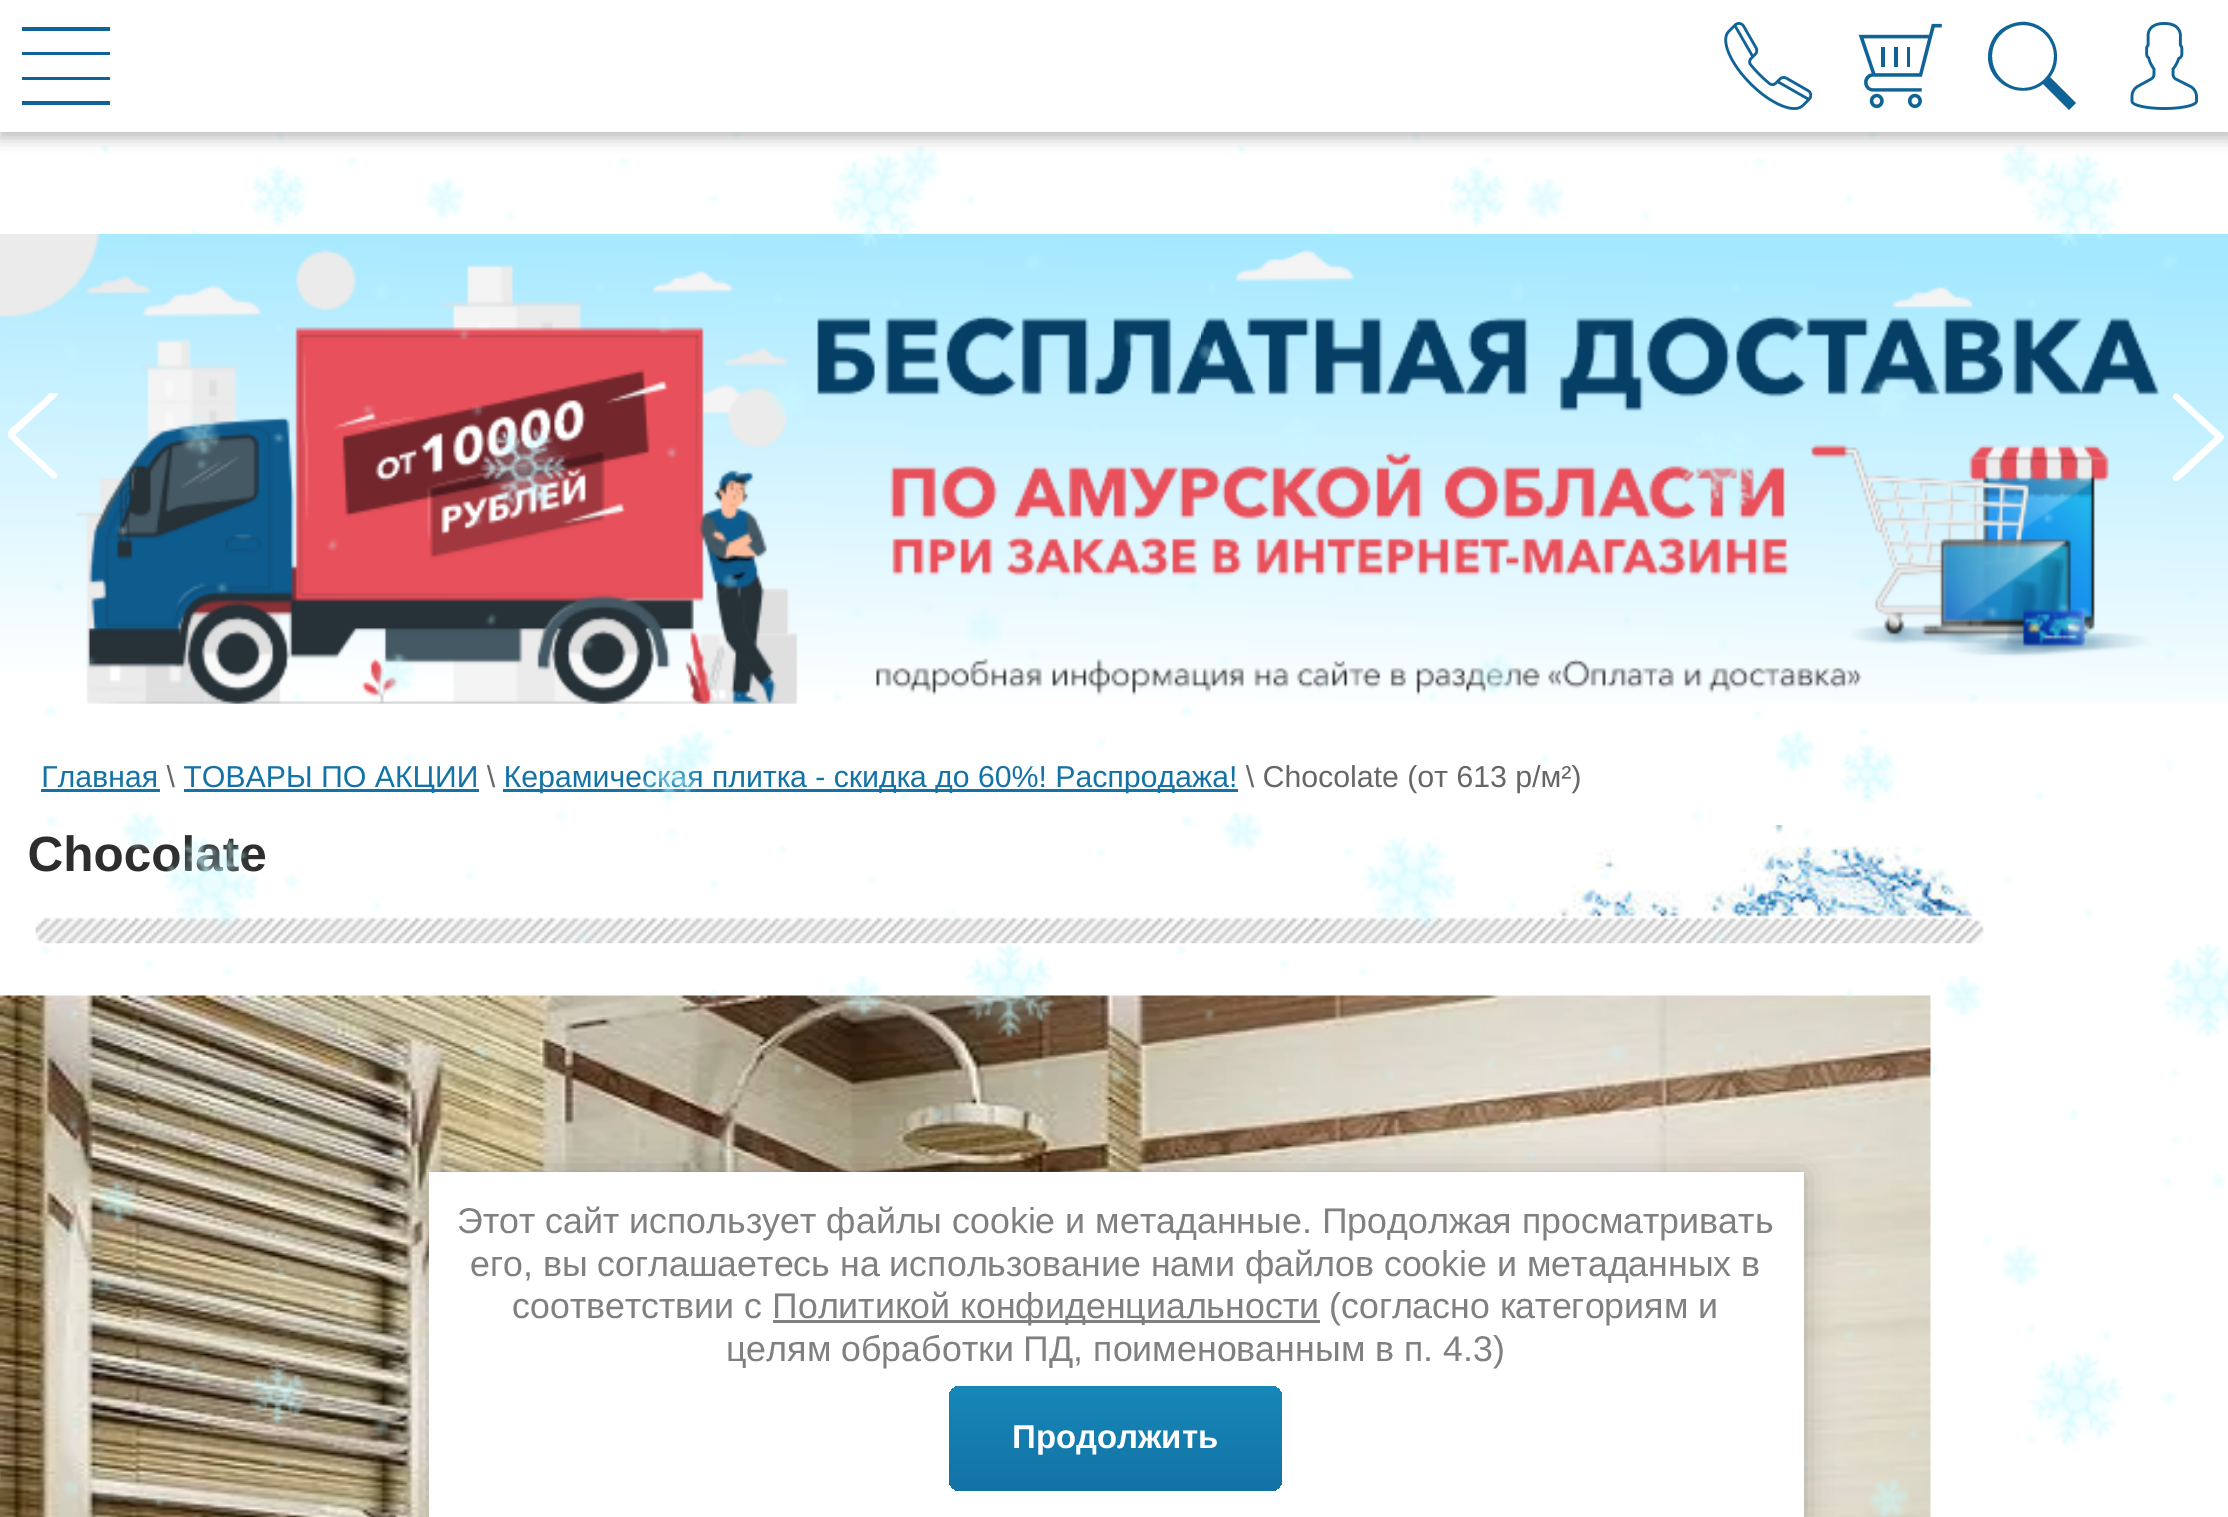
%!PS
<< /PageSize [2228 1517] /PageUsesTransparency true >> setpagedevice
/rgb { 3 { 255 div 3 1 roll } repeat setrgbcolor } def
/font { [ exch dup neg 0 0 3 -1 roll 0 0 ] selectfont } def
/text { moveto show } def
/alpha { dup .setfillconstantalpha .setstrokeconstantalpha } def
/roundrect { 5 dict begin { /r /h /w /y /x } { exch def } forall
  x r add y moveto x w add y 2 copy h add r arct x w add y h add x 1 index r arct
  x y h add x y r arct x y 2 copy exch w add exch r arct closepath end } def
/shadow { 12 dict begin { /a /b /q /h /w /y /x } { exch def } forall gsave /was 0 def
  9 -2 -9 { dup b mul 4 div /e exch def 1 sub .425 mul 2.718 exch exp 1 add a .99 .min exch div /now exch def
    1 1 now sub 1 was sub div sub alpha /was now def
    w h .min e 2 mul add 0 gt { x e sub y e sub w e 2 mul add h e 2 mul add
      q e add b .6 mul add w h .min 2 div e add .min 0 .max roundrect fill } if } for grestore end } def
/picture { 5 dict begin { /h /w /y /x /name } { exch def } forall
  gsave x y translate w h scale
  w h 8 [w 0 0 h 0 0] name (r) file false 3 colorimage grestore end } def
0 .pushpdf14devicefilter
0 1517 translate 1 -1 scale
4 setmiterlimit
255 255 255 rgb
0 0 2228 1517 rectfill
(img_07.rgb) 0 234 2228 470 picture
gsave
8 393 53 88 rectclip
8 437 moveto 44 41 rlineto 3 2 7 -1 5 -4 rcurveto -42 -39 rlineto 42 -39 rlineto 2 -2 0 -5 -2 -5 rcurveto -4 -1 -10 7 -10 7 rcurveto -30 27 rlineto 0 0 -8 6 -8 9 rcurveto -1 1 0 2 1 3 rcurveto closepath eofill
grestore
gsave
2173 393 52 88 rectclip
2223 435 moveto -45 -41 rlineto -3 -2 -6 1 -5 4 rcurveto 42 39 rlineto -42 39 rlineto -1 2 0 5 2 5 rcurveto 4 1 10 -7 11 -7 rcurveto 29 -27 rlineto 0 0 8 -6 9 -9 rcurveto 0 -1 0 -3 -1 -3 rcurveto closepath eofill
grestore
19 114 166 rgb
41 789 119 3 rectfill
184 789 295 3 rectfill
503 789 735 3 rectfill
(img_08.rgb) 35 825 1949 119 picture
(img_09.rgb) 0 995 1931 522 picture
/LiberationSans-Regular 30.25 font
(Главная) 41 787 text
102 102 102 rgb
(\\) 167 787 text
19 114 166 rgb
(ТОВАРЫ ПО АКЦИИ) 183 787 text
102 102 102 rgb
(\\) 487 787 text
19 114 166 rgb
(Керамическая плитка - скидка до 60%! Распродажа!) 504 787 text
102 102 102 rgb
(\\ Chocolate \(от 613 р/м²\)) 1246 787 text
/LiberationSans-Bold 49.5 font
45 45 45 rgb
(Chocolate) 28 871 text
(img_06.rgb) 164 153 2064 1294 picture
(img_05.rgb) 98 145 2002 1372 picture
(img_04.rgb) 0 132 2225 1376 picture
0 0 0 rgb
0 6 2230 132 0 7 0.26 shadow
255 255 255 rgb
0 0 2228 132 rectfill
(img_03.rgb) 2130 22 68 88 picture
15 99 151 rgb
2076 103 moveto -26 -26 rlineto 12 -15 8 -38 -8 -49 rcurveto -10 -7 -22 -8 -33 -3 rcurveto -8 3 -15 10 -18 18 rcurveto -14 33 25 61 52 41 rcurveto 26 26 rlineto closepath 1992 56 moveto 0 -17 14 -31 31 -31 rcurveto 17 0 31 14 31 31 rcurveto 0 18 -14 32 -31 32 rcurveto -17 0 -31 -14 -31 -32 rcurveto closepath fill
(img_02.rgb) 1858 23 84 86 picture
(img_01.rgb) 1724 22 88 88 picture
22 101 88 4 rectfill
22 77 88 3 rectfill
22 52 88 3 rectfill
22 27 88 4 rectfill
0 0 0 rgb
429 1174 1375 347 0 14 0.23 shadow
255 255 255 rgb
429 1172 1375 345 rectfill
/LiberationSans-Regular 35.75 font
128 128 128 rgb
(Этот сайт использует файлы cookie и метаданные. Продолжая просматривать) 457 1233 text
(его, вы соглашаетесь на использование нами файлов cookie и метаданных в) 470 1276 text
(соответствии с) 512 1318 text
773 1320 547 3 rectfill
(Политикой конфиденциальности \(согласно категориям и) 772 1318 text
(целям обработки ПД, поименованным в п. 4.3\)) 726 1361 text
gsave 949 1386 333 105 11 roundrect clip newpath
<< /ShadingType 2 /ColorSpace /DeviceRGB /Coords [1115 1386 1115 1491] /Extend [true true] /Function << /FunctionType 2 /Domain [0 1] /C0 [0.086 0.533 0.718] /C1 [0.075 0.447 0.651] /N 1 >> >> shfill grestore
/LiberationSans-Bold 33 font
255 255 255 rgb
(Продолжить) 1012 1448 text
.poppdf14devicefilter showpage
